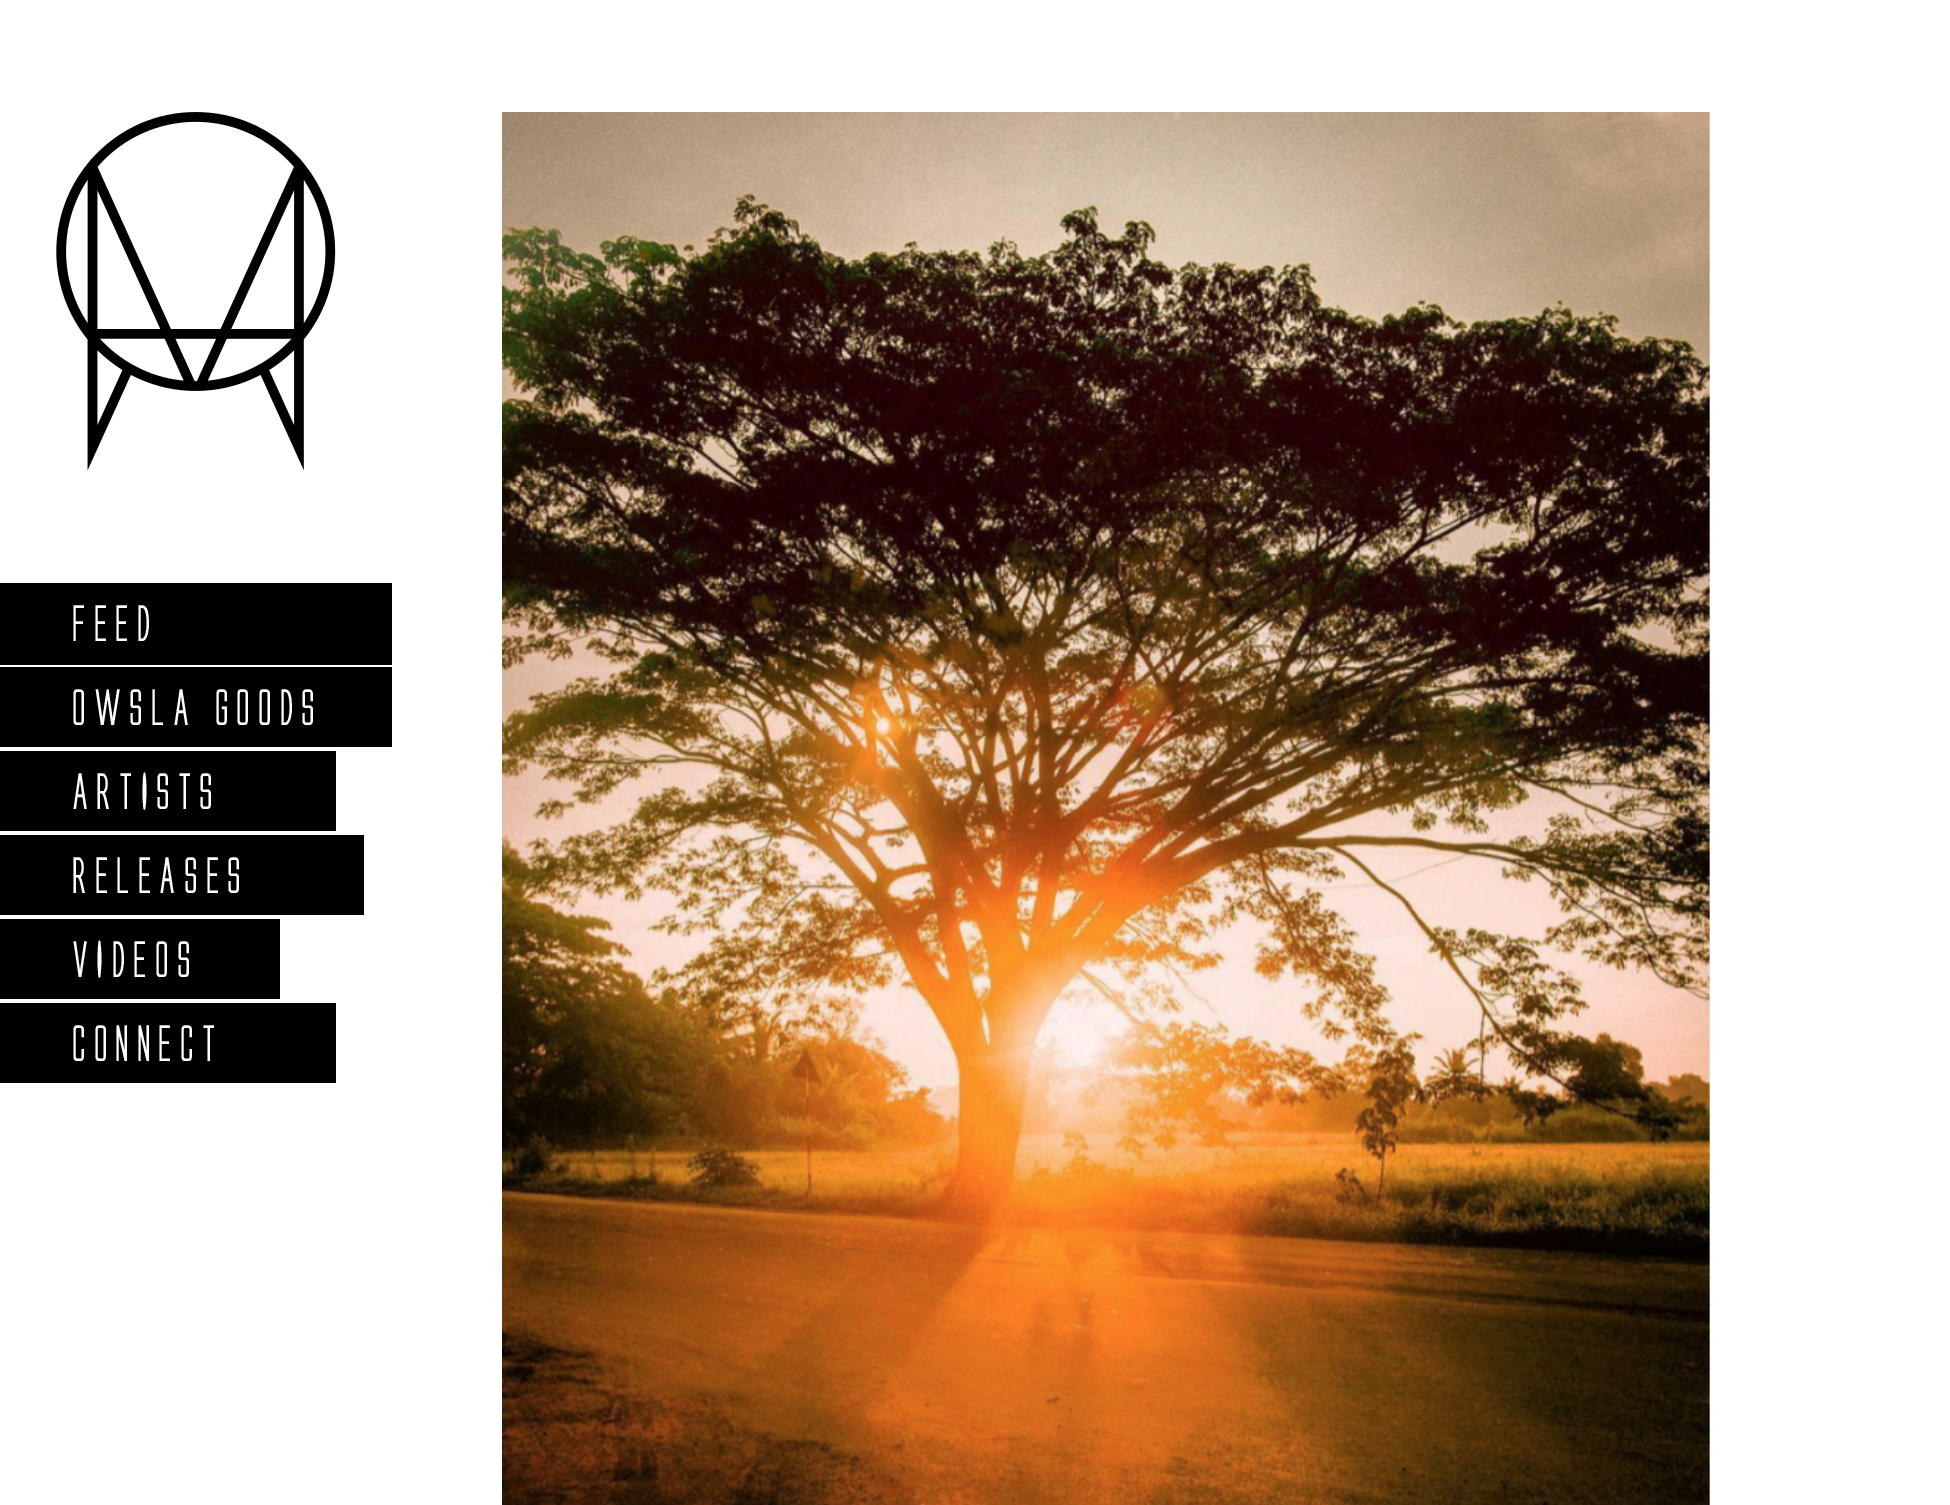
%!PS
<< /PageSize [1950 1505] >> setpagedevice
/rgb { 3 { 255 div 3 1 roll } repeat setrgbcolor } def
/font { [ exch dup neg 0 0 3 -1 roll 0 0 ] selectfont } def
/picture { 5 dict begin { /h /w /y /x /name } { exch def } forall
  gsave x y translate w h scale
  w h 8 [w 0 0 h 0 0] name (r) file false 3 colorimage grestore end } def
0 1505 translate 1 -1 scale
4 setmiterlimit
255 255 255 rgb
0 0 1950 1505 rectfill
(img_01.rgb) 56 112 280 359 picture
0 0 0 rgb
0 583 392 82 rectfill
0 667 392 80 rectfill
0 751 336 80 rectfill
0 835 364 80 rectfill
0 919 280 80 rectfill
0 1003 336 80 rectfill
(img_02.rgb) 502 112 1208 1393 picture
/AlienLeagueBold-Bold 47.5 font
255 255 255 rgb
70 641 moveto 1.4 0 (FEED) ashow
70 725 moveto 1.4 0 (OWSLA GOODS) ashow
70 809 moveto 1.4 0 (ARTISTS) ashow
70 893 moveto 1.4 0 (RELEASES) ashow
70 977 moveto 1.4 0 (VIDEOS) ashow
70 1061 moveto 1.4 0 (CONNECT) ashow
showpage
